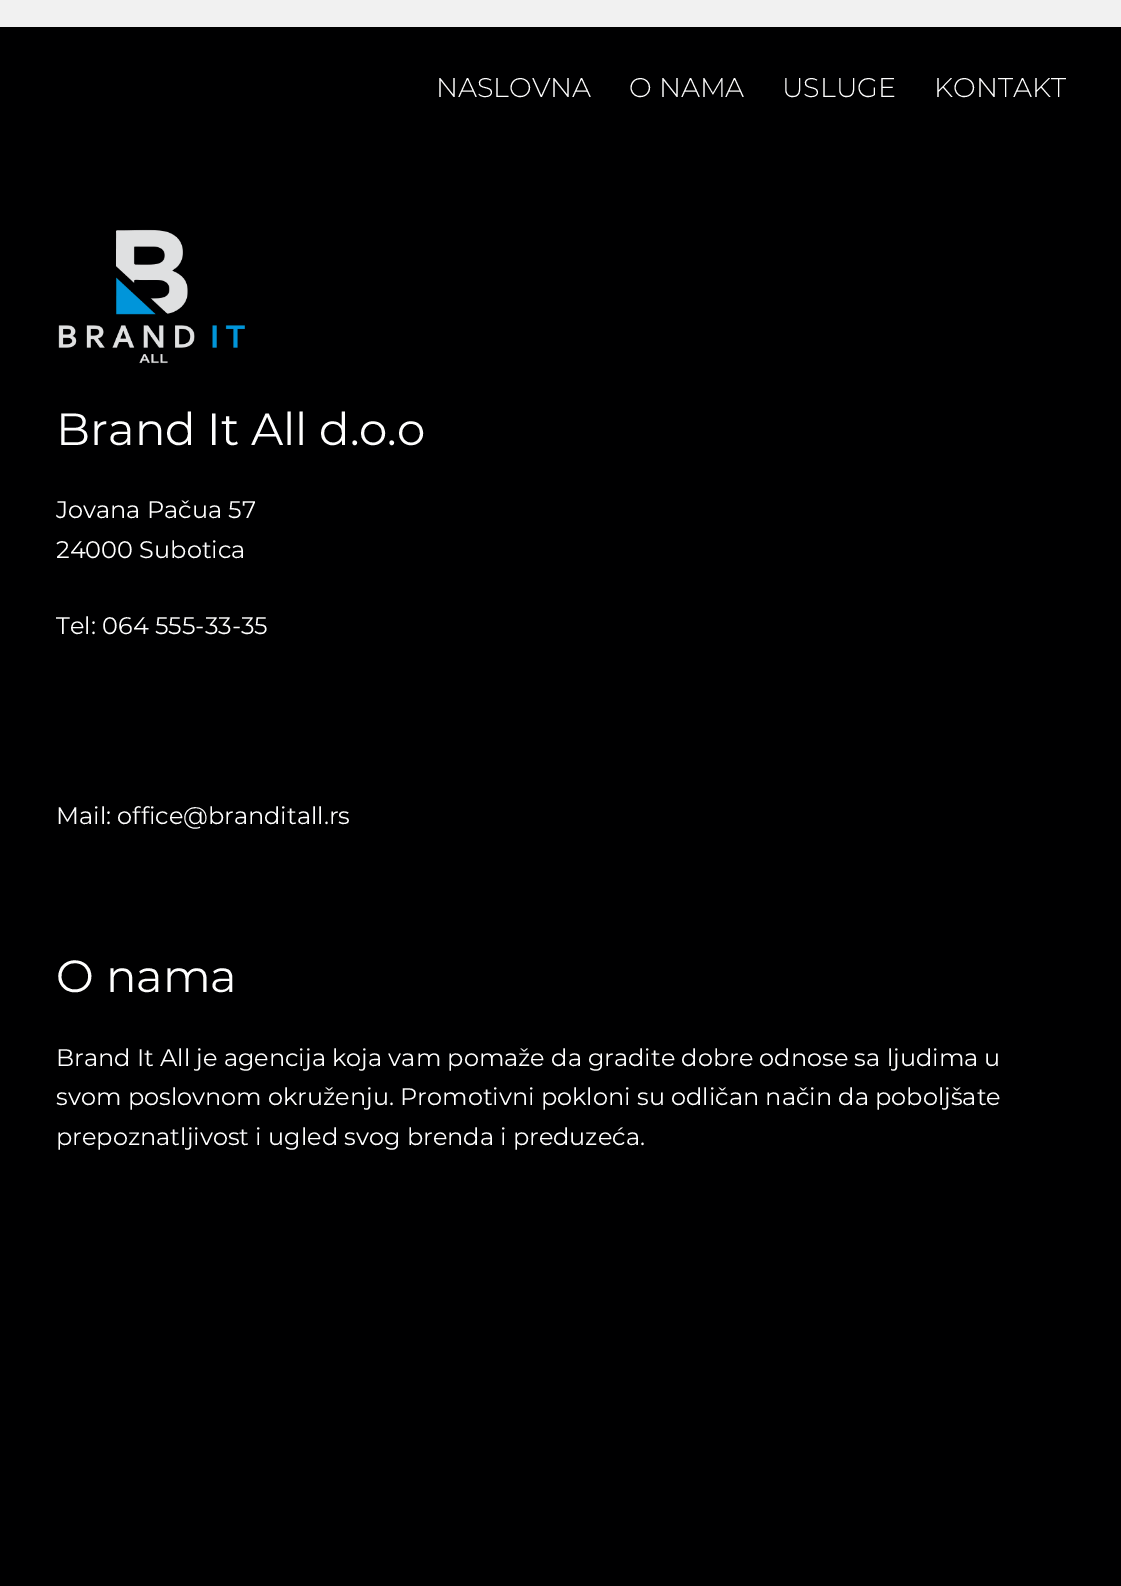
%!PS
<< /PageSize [1121 1586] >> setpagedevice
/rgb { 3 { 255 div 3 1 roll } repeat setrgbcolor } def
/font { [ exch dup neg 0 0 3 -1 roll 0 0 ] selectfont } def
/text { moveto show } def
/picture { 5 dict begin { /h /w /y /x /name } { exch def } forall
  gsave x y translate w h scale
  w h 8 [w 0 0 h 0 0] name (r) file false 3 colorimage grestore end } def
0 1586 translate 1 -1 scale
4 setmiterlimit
255 255 255 rgb
0 0 1121 1586 rectfill
gsave 0 0 moveto 1121 0 rlineto 0 27 rlineto -1121 0 rlineto closepath clip newpath
<< /ShadingType 2 /ColorSpace /DeviceRGB /Coords [561 -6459 561 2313] /Extend [true true] /Function << /FunctionType 3 /Domain [0 1] /Functions [<< /FunctionType 2 /Domain [0 1] /C0 [1 1 1] /C1 [1 1 1] /N 1 >> << /FunctionType 2 /Domain [0 1] /C0 [1 1 1] /C1 [0.945 0.945 0.945] /N 1 >> << /FunctionType 2 /Domain [0 1] /C0 [0.945 0.945 0.945] /C1 [0.945 0.945 0.945] /N 1 >>] /Bounds [0.26 0.54] /Encode [0 1 0 1 0 1] >> >> shfill grestore
0 0 1 rgb
0 27 1121 1559 rectfill
(img_01.rgb) 58 229 187 135 picture
/Montserrat-Light 27 font
254 254 254 rgb
(NASLOVNA) 436 97 text
(O NAMA) 629 97 text
(USLUGE) 782 97 text
(KONTAKT) 934 97 text
/Montserrat-Regular 45 font
(Brand It All d.o.o) 56 445 text
/Montserrat-Regular 24 font
(Jovana Pačua 57) 56 518 text
(24000 Subotica) 56 558 text
(Tel: 064 555-33-35) 56 634 text
(Mail: office@branditall.rs) 56 824 text
/Montserrat-Regular 45 font
(O nama) 56 992 text
/Montserrat-Regular 24 font
(Brand It All je agencija koja vam pomaže da gradite dobre odnose sa ljudima u) 56 1066 text
(svom poslovnom okruženju. Promotivni pokloni su odličan način da poboljšate) 56 1105 text
(prepoznatljivost i ugled svog brenda i preduzeća.) 56 1145 text
showpage
